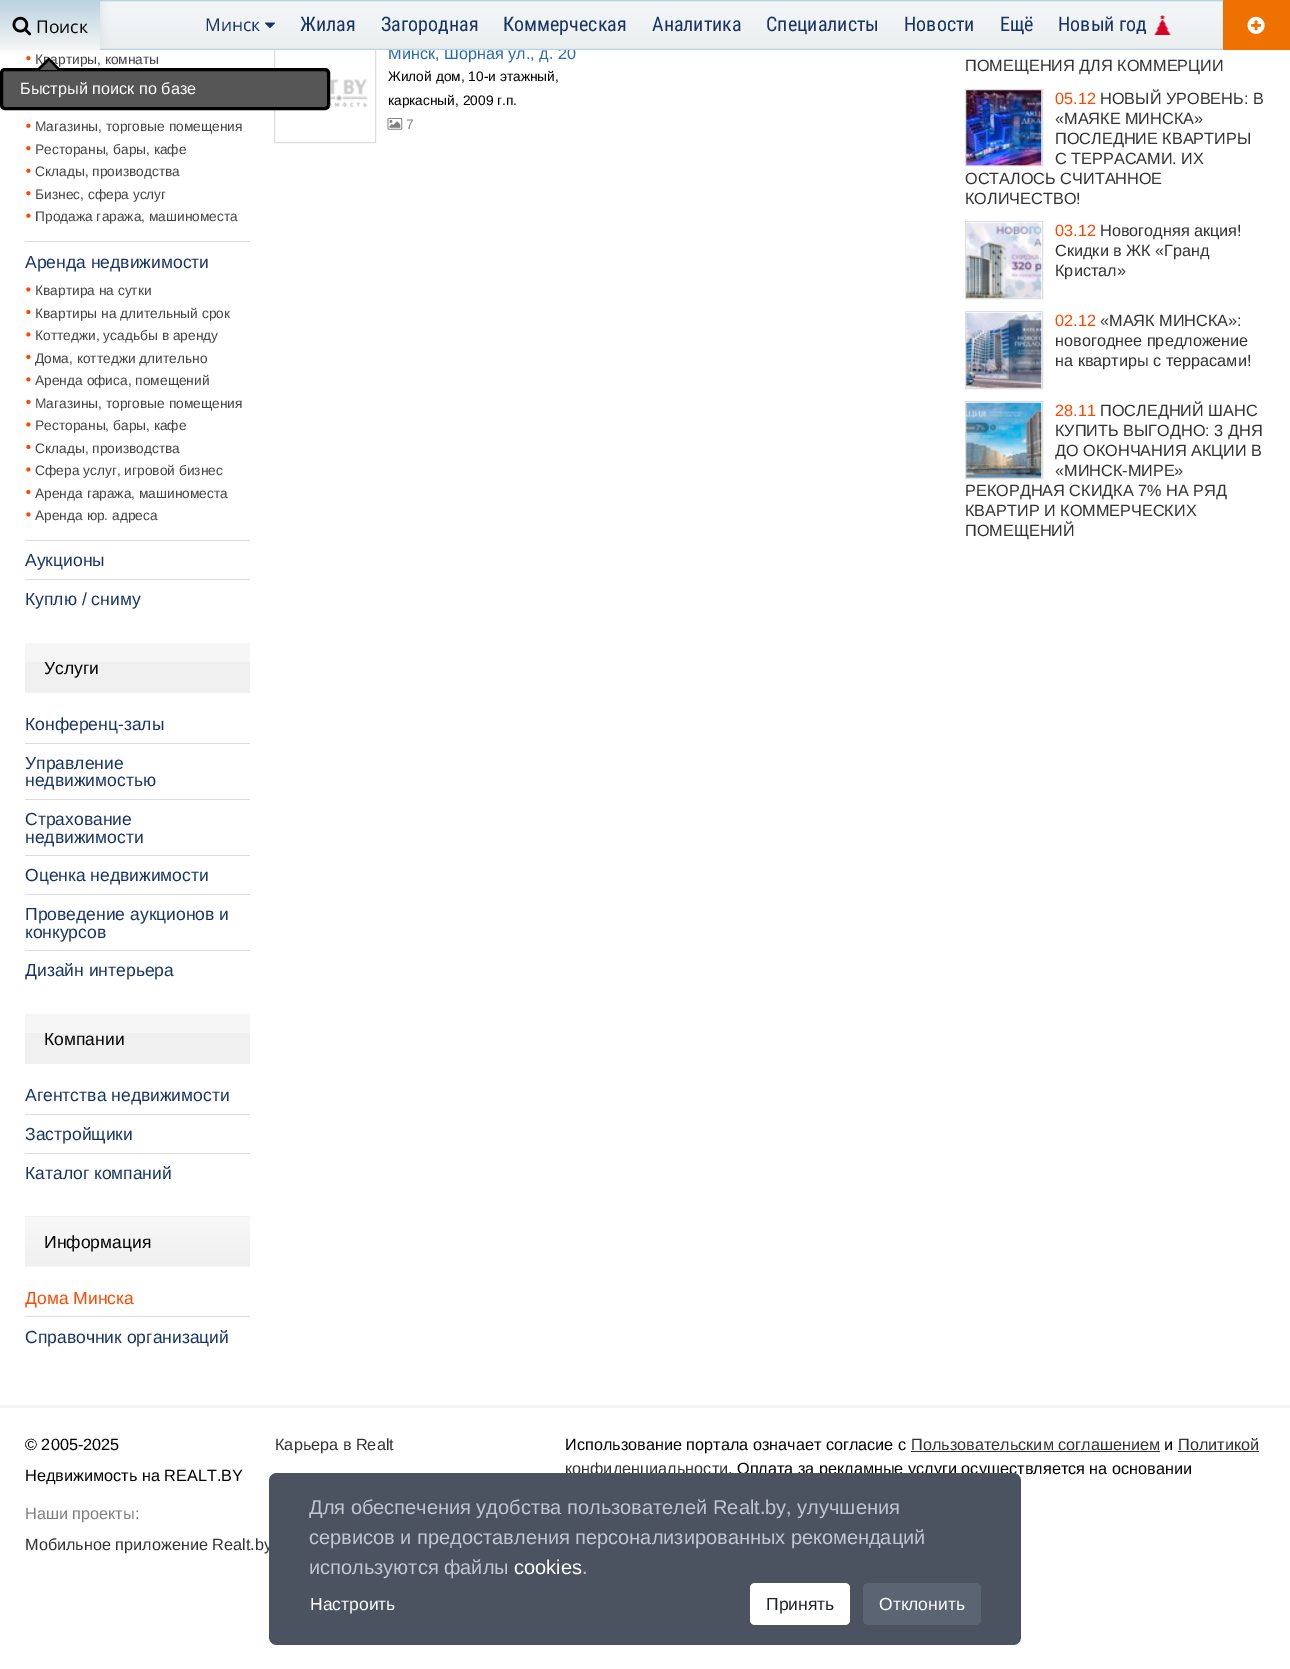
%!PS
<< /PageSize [1290 1669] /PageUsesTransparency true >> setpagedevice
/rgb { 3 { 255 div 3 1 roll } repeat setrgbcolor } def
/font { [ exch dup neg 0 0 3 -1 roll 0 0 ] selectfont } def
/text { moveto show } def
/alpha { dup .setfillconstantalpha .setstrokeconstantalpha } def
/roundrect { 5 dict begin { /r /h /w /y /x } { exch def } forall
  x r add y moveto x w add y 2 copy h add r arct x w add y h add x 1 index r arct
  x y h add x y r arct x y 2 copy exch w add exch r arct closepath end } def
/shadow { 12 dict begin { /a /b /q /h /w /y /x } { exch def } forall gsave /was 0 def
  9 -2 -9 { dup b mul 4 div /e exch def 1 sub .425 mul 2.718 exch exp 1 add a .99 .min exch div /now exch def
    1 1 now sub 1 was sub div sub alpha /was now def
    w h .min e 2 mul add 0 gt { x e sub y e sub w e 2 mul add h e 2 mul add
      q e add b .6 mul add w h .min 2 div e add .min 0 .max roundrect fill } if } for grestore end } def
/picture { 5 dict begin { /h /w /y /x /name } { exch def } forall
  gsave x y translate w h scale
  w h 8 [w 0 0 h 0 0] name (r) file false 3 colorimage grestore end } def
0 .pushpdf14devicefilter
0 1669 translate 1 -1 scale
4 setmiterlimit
255 255 255 rgb
0 0 1290 1669 rectfill
238 113 1 rgb
1223 0 67 50 rectfill
(img_05.rgb) 1247 16 18 18 picture
221 221 221 rgb
25 241 225 1 rectfill
(img_06.rgb) 26 56 5 5 picture
(img_07.rgb) 26 123 5 5 picture
(img_06.rgb) 26 146 5 5 picture
(img_07.rgb) 26 168 5 5 picture
(img_06.rgb) 26 191 5 5 picture
(img_07.rgb) 26 213 5 5 picture
25 540 225 1 rectfill
(img_08.rgb) 26 287 5 5 picture
(img_09.rgb) 26 309 5 6 picture
(img_08.rgb) 26 332 5 5 picture
(img_09.rgb) 26 354 5 6 picture
(img_08.rgb) 26 377 5 5 picture
(img_09.rgb) 26 399 5 6 picture
(img_08.rgb) 26 422 5 5 picture
(img_09.rgb) 26 444 5 6 picture
(img_08.rgb) 26 467 5 5 picture
(img_09.rgb) 26 489 5 6 picture
(img_08.rgb) 26 512 5 5 picture
25 579 225 1 rectfill
240 240 240 rgb
25 662 225 31 rectfill
246 246 246 rgb
25 643 225 19 rectfill
221 221 221 rgb
25 743 225 1 rectfill
25 799 225 1 rectfill
25 855 225 1 rectfill
25 894 225 1 rectfill
25 950 225 1 rectfill
240 240 240 rgb
25 1033 225 31 rectfill
246 246 246 rgb
25 1014 225 19 rectfill
221 221 221 rgb
25 1114 225 1 rectfill
25 1153 225 1 rectfill
240 240 240 rgb
25 1216 225 1 rectfill
(img_10.rgb) 25 1217 225 50 picture
221 221 221 rgb
25 1316 225 1 rectfill
(img_11.rgb) 329 79 39 29 picture
274.5 40.5 101 102 rectstroke
(img_12.rgb) 387 117 16 13 picture
965.5 89.5 77 76 rectstroke
(img_13.rgb) 966 90 76 76 picture
965.5 221.5 77 77 rectstroke
(img_14.rgb) 966 222 76 76 picture
965.5 311.5 77 77 rectstroke
(img_15.rgb) 966 312 76 76 picture
965.5 401.5 77 77 rectstroke
(img_16.rgb) 966 402 76 76 picture
86 86 86 rgb
1.5 69.5 327 39 3.5 roundrect gsave fill grestore
0 0 0 rgb
3 setlinewidth
stroke
244 244 244 rgb
0 1405 1290 3 rectfill
51 51 51 rgb
911 1451 249 1 rectfill
1178 1451 81 1 rectfill
/LiberationSans-Regular 13.75 font
68 68 68 rgb
(Квартиры, комнаты) 35 64 text
(Магазины, торговые помещения) 35 131 text
(Рестораны, бары, кафе) 35 154 text
(Склады, производства) 35 176 text
(Бизнес, сфера услуг) 35 199 text
(Продажа гаража, машиноместа) 35 221 text
/LiberationSans-Regular 17.5 font
24 51 104 rgb
(Аренда недвижимости) 25 268 text
/LiberationSans-Regular 13.75 font
68 68 68 rgb
(Квартира на сутки) 35 295 text
(Квартиры на длительный срок) 35 318 text
(Коттеджи, усадьбы в аренду) 35 340 text
(Дома, коттеджи длительно) 35 363 text
(Аренда офиса, помещений) 35 385 text
(Магазины, торговые помещения) 35 408 text
(Рестораны, бары, кафе) 35 430 text
(Склады, производства) 35 453 text
(Сфера услуг, игровой бизнес) 35 475 text
(Аренда гаража, машиноместа) 35 498 text
(Аренда юр. адреса) 35 520 text
/LiberationSans-Regular 17.5 font
24 51 104 rgb
(Аукционы) 25 566 text
(Куплю / сниму) 25 605 text
0 0 0 rgb
(Услуги) 44 674 text
24 51 104 rgb
(Конференц-залы) 25 730 text
(Управление) 25 769 text
(недвижимостью) 25 786 text
(Страхование) 25 825 text
(недвижимости) 25 843 text
(Оценка недвижимости) 25 881 text
(Проведение аукционов и) 25 920 text
(конкурсов) 25 938 text
(Дизайн интерьера) 25 976 text
0 0 0 rgb
(Компании) 44 1045 text
24 51 104 rgb
(Агентства недвижимости) 25 1101 text
(Застройщики) 25 1140 text
(Каталог компаний) 25 1179 text
0 0 0 rgb
(Информация) 44 1248 text
255 70 0 rgb
(Дома Минска) 25 1304 text
24 51 104 rgb
(Справочник организаций) 25 1343 text
/LiberationSans-Regular 16.25 font
36 107 179 rgb
(Минск, Шорная ул., д. 20) 388 59 text
(img_01.rgb) 100 0 1123 50 picture
(img_04.rgb) 1154 15 17 20 picture
/RobotoCondensed-Regular 20 font
24 51 104 rgb
(Новый год) 1058 31 text
(Ещё) 1000 31 text
(Новости) 904 31 text
(Специалисты) 766 31 text
(Аналитика) 652 31 text
(Коммерческая) 503 31 text
(Загородная) 381 31 text
(Жилая) 300 31 text
178 203 218 rgb
0 -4 100 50 0 5 0.5 shadow
gsave 0 0 moveto 100 0 rlineto 0 50 rlineto -100 0 rlineto closepath clip newpath
<< /ShadingType 2 /ColorSpace /DeviceRGB /Coords [50 0 50 50] /Extend [true true] /Function << /FunctionType 2 /Domain [0 1] /C0 [0.729 0.827 0.878] /C1 [0.961 0.961 0.961] /N 1 >> >> shfill grestore
/OpenSans-Regular 17.5 font
0 0 0 rgb
(Поиск) 36 33 text
(img_02.rgb) 12 16 19 20 picture
(img_03.rgb) 265 22 10 6 picture
24 51 104 rgb
(Минск) 205 31 text
/LiberationSans-Regular 13.75 font
0 0 0 rgb
(Жилой дом, 10-и этажный,) 388 81 text
(каркасный, 2009 г.п.) 388 105 text
128 128 128 rgb
(7) 406 129 text
/LiberationSans-Regular 16.25 font
51 51 51 rgb
(ПОМЕЩЕНИЯ ДЛЯ КОММЕРЦИИ) 965 71 text
255 70 0 rgb
(05.12) 1055 104 text
51 51 51 rgb
(НОВЫЙ УРОВЕНЬ: В) 1100 104 text
(«МАЯКЕ МИНСКА») 1055 124 text
(ПОСЛЕДНИЕ КВАРТИРЫ) 1055 144 text
(С ТЕРРАСАМИ. ИХ) 1055 164 text
(ОСТАЛОСЬ СЧИТАННОЕ) 965 184 text
(КОЛИЧЕСТВО!) 965 204 text
255 70 0 rgb
(03.12) 1055 236 text
51 51 51 rgb
(Новогодняя акция!) 1100 236 text
(Скидки в ЖК «Гранд) 1055 256 text
(Кристал») 1055 276 text
255 70 0 rgb
(02.12) 1055 326 text
51 51 51 rgb
(«МАЯК МИНСКА»:) 1100 326 text
(новогоднее предложение) 1055 346 text
(на квартиры с террасами!) 1055 366 text
255 70 0 rgb
(28.11) 1055 416 text
51 51 51 rgb
(ПОСЛЕДНИЙ ШАНС) 1100 416 text
(КУПИТЬ ВЫГОДНО: 3 ДНЯ) 1055 436 text
(ДО ОКОНЧАНИЯ АКЦИИ В) 1055 456 text
(«МИНСК-МИРЕ») 1055 476 text
(РЕКОРДНАЯ СКИДКА 7% НА РЯД) 965 496 text
(КВАРТИР И КОММЕРЧЕСКИХ) 965 516 text
(ПОМЕЩЕНИЙ) 965 536 text
0 0 0 rgb
61 70 moveto -25 0 rlineto 13 -12.5 rlineto closepath fill
gsave
36 58 25 12 rectclip
86 86 86 rgb
61 74 moveto -25 0 rlineto 13 -13 rlineto closepath fill
grestore
255 255 255 rgb
(Быстрый поиск по базе) 20 94 text
0 0 0 rgb
(© 2005-2025) 25 1450 text
(Недвижимость на REALT.BY) 25 1481 text
51 51 51 rgb
(Карьера в Realt) 275 1450 text
128 128 128 rgb
(Наши проекты:) 25 1519 text
51 51 51 rgb
(Мобильное приложение Realt.by) 25 1550 text
0 0 0 rgb
(Использование портала означает согласие с) 565 1450 text
51 51 51 rgb
(Пользовательским соглашением) 911 1450 text
0 0 0 rgb
(и) 1164 1450 text
51 51 51 rgb
(Политикой) 1178 1450 text
(конфиденциальности) 565 1474 text
0 0 0 rgb
(. Оплата за рекламные услуги осуществляется на основании) 728 1474 text
75 83 96 rgb
269 1473 752 172 8 roundrect fill
/LiberationSans-Regular 20 font
194 199 207 rgb
(Для обеспечения удобства пользователей Realt.by, улучшения) 309 1514 text
(сервисов и предоставления персонализированных рекомендаций) 309 1544 text
(используются файлы) 309 1574 text
255 255 255 rgb
(cookies) 514 1574 text
194 199 207 rgb
(.) 582 1574 text
/LiberationSans-Regular 17.5 font
255 255 255 rgb
(Настроить) 310 1610 text
750 1583 100 42 5 roundrect fill
29 33 38 rgb
(Принять) 766 1610 text
91 100 115 rgb
863 1583 118 42 5 roundrect fill
255 255 255 rgb
(Отклонить) 879 1610 text
.poppdf14devicefilter showpage
